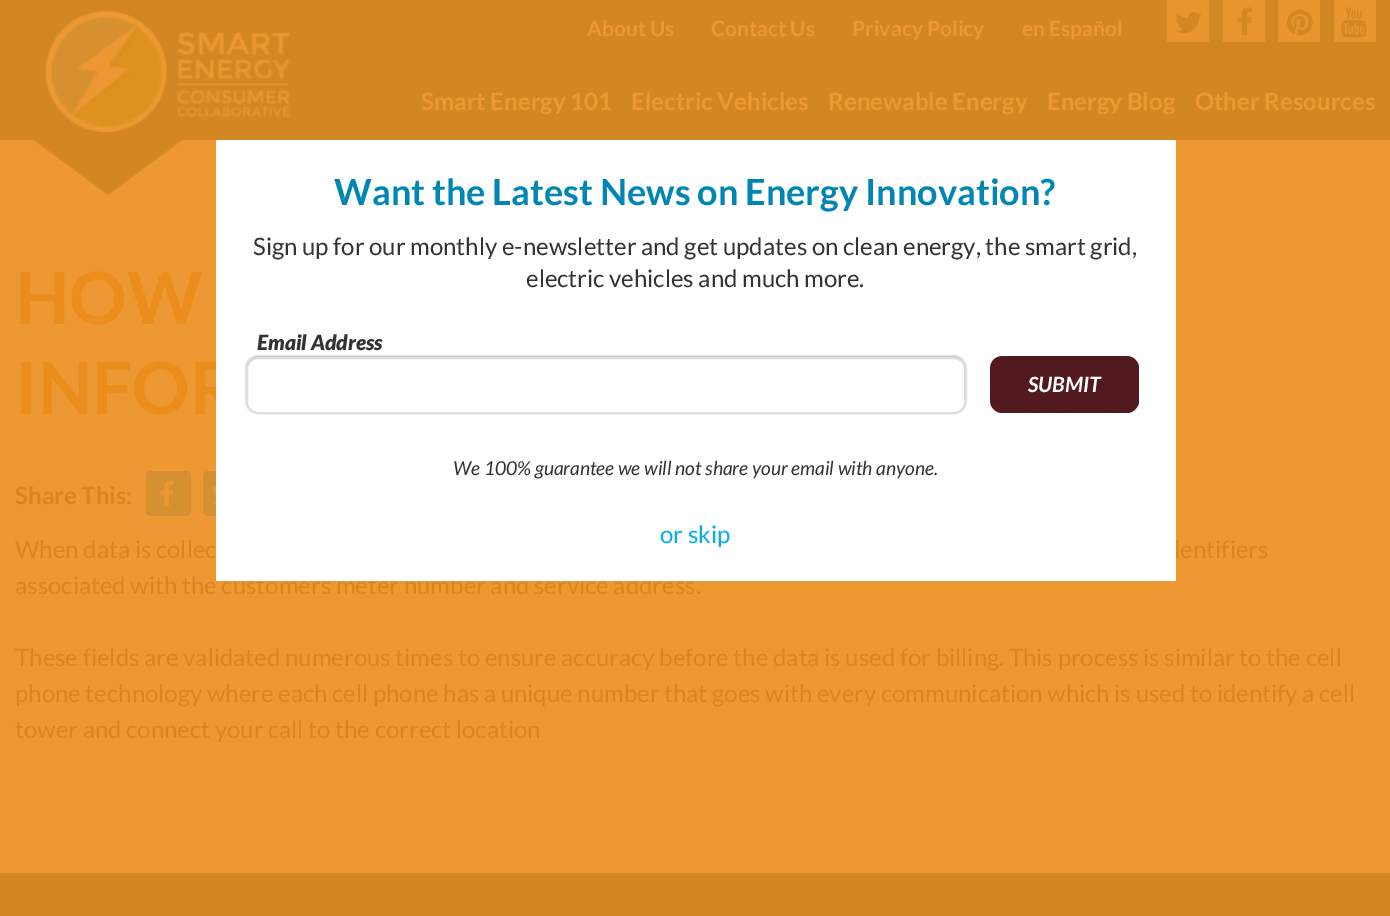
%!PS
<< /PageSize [1390 916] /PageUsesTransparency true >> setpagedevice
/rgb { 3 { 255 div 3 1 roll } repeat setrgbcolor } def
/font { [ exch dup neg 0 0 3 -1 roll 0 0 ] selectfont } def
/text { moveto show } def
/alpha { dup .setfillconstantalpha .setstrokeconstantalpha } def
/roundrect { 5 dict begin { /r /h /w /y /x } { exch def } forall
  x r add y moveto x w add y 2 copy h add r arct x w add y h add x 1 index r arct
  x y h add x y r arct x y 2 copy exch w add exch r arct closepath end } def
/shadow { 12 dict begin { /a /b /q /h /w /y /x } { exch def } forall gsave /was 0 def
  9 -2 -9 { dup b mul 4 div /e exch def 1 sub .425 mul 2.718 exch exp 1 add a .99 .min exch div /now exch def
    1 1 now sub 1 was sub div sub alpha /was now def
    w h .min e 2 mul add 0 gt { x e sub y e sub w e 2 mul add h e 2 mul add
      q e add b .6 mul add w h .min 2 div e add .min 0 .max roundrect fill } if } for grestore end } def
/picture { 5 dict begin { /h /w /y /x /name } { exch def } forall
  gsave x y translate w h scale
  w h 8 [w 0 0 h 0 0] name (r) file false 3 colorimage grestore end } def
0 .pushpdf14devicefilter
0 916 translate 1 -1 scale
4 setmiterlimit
237 152 51 rgb
0 0 1390 916 rectfill
212 134 34 rgb
0 0 1390 140 rectfill
(img_01.rgb) 45 10 246 122 picture
232 149 47 rgb
1167 0 42 42 rectfill
(img_02.rgb) 1175 11 27 23 picture
1223 0 42 42 rectfill
(img_03.rgb) 1237 7 16 29 picture
1278 0 42 42 rectfill
(img_04.rgb) 1287 9 26 27 picture
1334 0 42 42 rectfill
(img_05.rgb) 1341 7 26 31 picture
(img_07.rgb) 32 140 152 56 picture
212 144 49 rgb
146 471 45 45 5 roundrect fill
(img_08.rgb) 160 481 14 26 picture
203 471 45 45 5 roundrect fill
(img_09.rgb) 212 485 4 19 picture
212 134 34 rgb
0 873 1390 43 rectfill
/Lato-Bold 21 font
237 152 51 rgb
(About Us) 587 36 text
(Contact Us) 711 36 text
(Privacy Policy) 852 36 text
(en Español) 1022 36 text
/Lato-Bold 24 font
(Smart Energy 101) 421 110 text
(Electric Vehicles) 631 110 text
(Renewable Energy) 828 110 text
(Energy Blog) 1047 110 text
(Other Resources) 1195 110 text
/Lato-Bold 72 font
235 141 28 rgb
(HOW) 15 324 text
(INFOR) 15 414 text
/Lato-Bold 24 font
217 132 30 rgb
(Share This:) 15 504 text
/Lato-Regular 24 font
(When data is collec) 15 558 text
(dentifiers) 1167 558 text
(associated with the customers meter number and service address.) 15 594 text
255 255 255 rgb
216 140 960 441 rectfill
86 27 33 rgb
990 356 149 57 12 roundrect fill
(img_06.rgb) 990 356 148 56 picture
/Lato-BoldItalic 21 font
255 255 255 rgb
(SUBMIT) 1028 392 text
/Lato-Regular 24 font
0 174 239 rgb
(or skip) 660 543 text
/Lato-Italic 19.2 font
51 51 51 rgb
(We 100% guarantee we will not share your email with anyone.) 453 475 text
/Lato-Regular 24 font
(electric vehicles and much more.) 526 287 text
(Sign up for our monthly e-newsletter and get updates on clean energy, the smart grid,) 253 255 text
/Lato-Bold 36 font
0 133 183 rgb
(Want the Latest News on Energy Innovation?) 334 205 text
/Lato-BlackItalic 21 font
51 51 51 rgb
(Email Address) 257 350 text
gsave
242 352 moveto 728 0 rlineto 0 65 rlineto -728 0 rlineto closepath 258 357 moveto 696 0 rlineto 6.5 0 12 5.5 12 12 rcurveto 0 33 rlineto 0 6.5 -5.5 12 -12 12 rcurveto -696 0 rlineto -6.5 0 -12 -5.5 -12 -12 rcurveto 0 -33 rlineto 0 -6.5 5.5 -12 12 -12 rcurveto closepath eoclip newpath
0 0 0 rgb
246 356 720 57 12 1 0.3 shadow
grestore
221 221 221 rgb
2 setlinewidth
247 358 718 55 11 roundrect stroke
/Lato-Regular 24 font
217 132 30 rgb
(These fields are validated numerous times to ensure accuracy before the data is used for billing. This process is similar to the cell) 15 666 text
(phone technology where each cell phone has a unique number that goes with every communication which is used to identify a cell) 15 702 text
(tower and connect your call to the correct location) 15 738 text
.poppdf14devicefilter showpage
